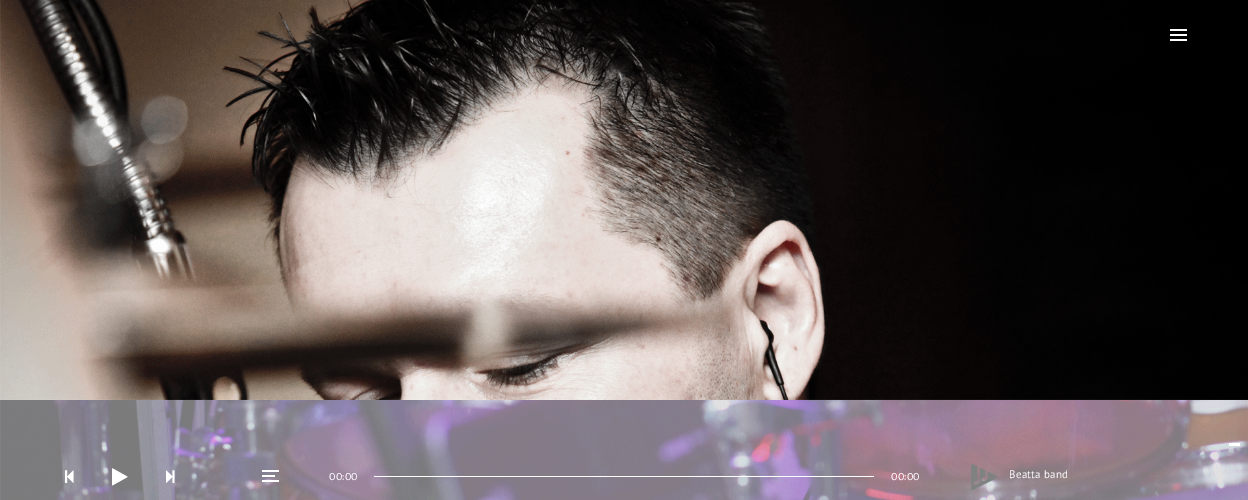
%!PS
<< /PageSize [1248 500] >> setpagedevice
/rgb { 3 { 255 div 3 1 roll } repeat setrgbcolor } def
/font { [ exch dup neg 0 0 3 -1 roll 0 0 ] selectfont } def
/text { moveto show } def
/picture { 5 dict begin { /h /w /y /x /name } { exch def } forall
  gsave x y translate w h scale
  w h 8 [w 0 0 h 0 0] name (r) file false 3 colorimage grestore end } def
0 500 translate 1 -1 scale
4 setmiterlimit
255 255 255 rgb
0 0 1248 500 rectfill
(img_01.rgb) 0 0 1248 400 picture
1170 29 17 2 rectfill
1170 34 17 2 rectfill
1170 39 17 2 rectfill
(img_02.rgb) 0 400 1248 100 picture
1229 443 11 3 rectfill
(img_03.rgb) 65 470 9 14 picture
(img_04.rgb) 112 468 16 18 picture
(img_05.rgb) 166 470 9 14 picture
262 470 17 2 rectfill
262 475 13 2 rectfill
262 480 17 2 rectfill
374 476 500 1 rectfill
(img_06.rgb) 971 464 26 26 picture
/Karla-Regular 11 font
(00:00) 329 480 text
(00:00) 891 480 text
/PTSans-Regular 11 font
1009 478 moveto 0.25 0 (Beatta band) ashow
showpage
